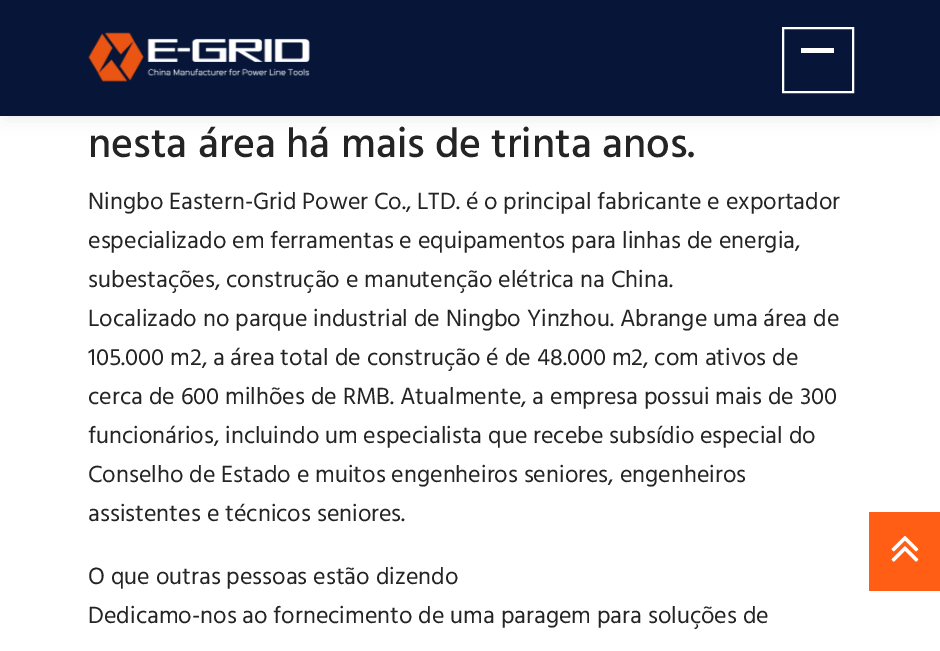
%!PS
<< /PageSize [940 651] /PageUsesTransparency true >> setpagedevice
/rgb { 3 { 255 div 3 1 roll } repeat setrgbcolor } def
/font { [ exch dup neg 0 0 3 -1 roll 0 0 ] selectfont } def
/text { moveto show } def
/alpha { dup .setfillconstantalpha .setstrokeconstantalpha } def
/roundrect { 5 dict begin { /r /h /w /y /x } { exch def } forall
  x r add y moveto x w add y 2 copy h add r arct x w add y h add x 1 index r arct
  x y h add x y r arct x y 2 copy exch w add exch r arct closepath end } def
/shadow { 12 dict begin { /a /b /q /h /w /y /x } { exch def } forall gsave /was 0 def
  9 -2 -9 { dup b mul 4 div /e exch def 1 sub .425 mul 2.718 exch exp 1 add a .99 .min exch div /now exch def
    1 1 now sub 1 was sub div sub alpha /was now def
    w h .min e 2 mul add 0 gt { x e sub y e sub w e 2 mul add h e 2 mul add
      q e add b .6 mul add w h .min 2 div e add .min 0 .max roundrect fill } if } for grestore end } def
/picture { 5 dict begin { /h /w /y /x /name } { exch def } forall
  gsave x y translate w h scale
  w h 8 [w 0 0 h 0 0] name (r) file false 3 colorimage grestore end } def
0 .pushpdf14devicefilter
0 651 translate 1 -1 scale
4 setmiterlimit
255 255 255 rgb
0 0 940 651 rectfill
0 0 0 rgb
6 12 929 104 0 9 0.1 shadow
6 21 56 rgb
0 0 940 116 rectfill
(img_01.rgb) 88 32 222 50 picture
255 255 255 rgb
2 setlinewidth
783 28 70 64 rectstroke
801 48 33 5 rectfill
255 94 20 rgb
869 512 71 79 rectfill
(img_02.rgb) 891 535 28 27 picture
/Hind-Medium 42 font
36 36 36 rgb
(nesta área há mais de trinta anos.) 88 157 text
/Hind-Regular 24 font
(Ningbo Eastern-Grid Power Co., LTD. é o principal fabricante e exportador) 88 209 text
(especializado em ferramentas e equipamentos para linhas de energia,) 88 248 text
(subestações, construção e manutenção elétrica na China.) 88 287 text
(Localizado no parque industrial de Ningbo Yinzhou. Abrange uma área de) 88 326 text
(105.000 m2, a área total de construção é de 48.000 m2, com ativos de) 88 365 text
(cerca de 600 milhões de RMB. Atualmente, a empresa possui mais de 300) 88 404 text
(funcionários, incluindo um especialista que recebe subsídio especial do) 88 443 text
(Conselho de Estado e muitos engenheiros seniores, engenheiros) 88 482 text
(assistentes e técnicos seniores.) 88 521 text
(O que outras pessoas estão dizendo) 88 584 text
(Dedicamo-nos ao fornecimento de uma paragem para soluções de) 88 623 text
.poppdf14devicefilter showpage
